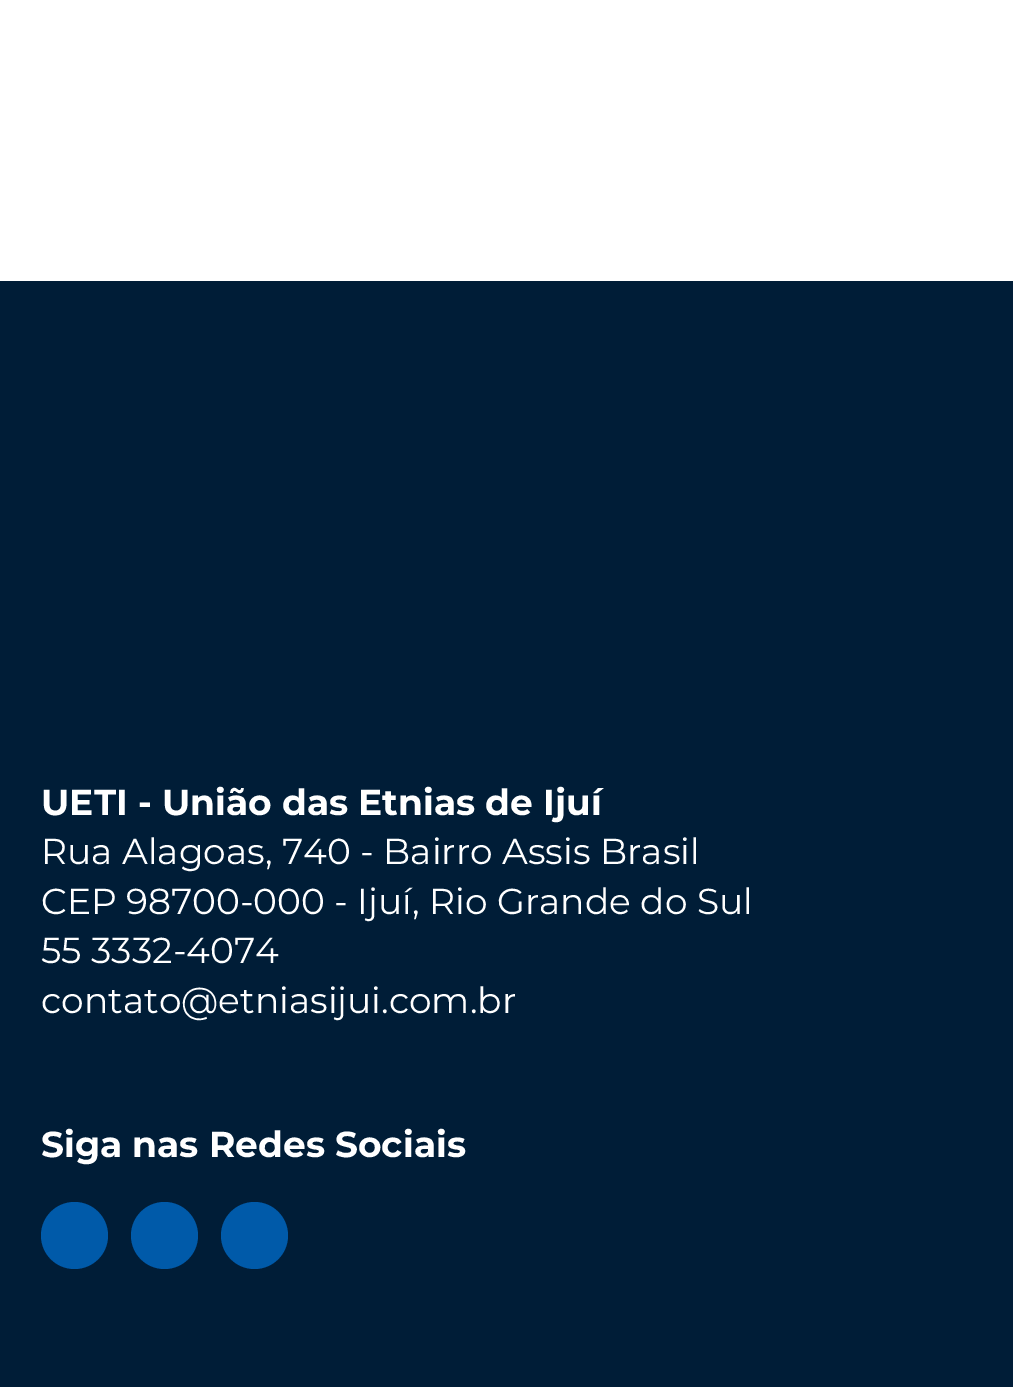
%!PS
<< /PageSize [1013 1387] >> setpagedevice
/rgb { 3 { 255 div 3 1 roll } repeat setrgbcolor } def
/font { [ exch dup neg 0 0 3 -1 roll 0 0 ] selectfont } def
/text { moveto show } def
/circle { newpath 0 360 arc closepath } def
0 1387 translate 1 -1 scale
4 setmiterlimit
255 255 255 rgb
0 0 1013 1387 rectfill
0 29 55 rgb
0 281 1013 1106 rectfill
0 90 169 rgb
74.5 1235.5 33.5 circle fill
164.5 1235.5 33.5 circle fill
254.5 1235.5 33.5 circle fill
/Montserrat-Bold 36 font
255 255 255 rgb
(UETI - União das Etnias de Ijuí) 41 815 text
/Montserrat-Regular 36 font
(Rua Alagoas, 740 - Bairro Assis Brasil) 41 864 text
(CEP 98700-000 - Ijuí, Rio Grande do Sul) 41 914 text
(55 3332-4074) 41 963 text
(contato@etniasijui.com.br) 41 1013 text
/Montserrat-Bold 36 font
(Siga nas Redes Sociais) 41 1157 text
showpage
